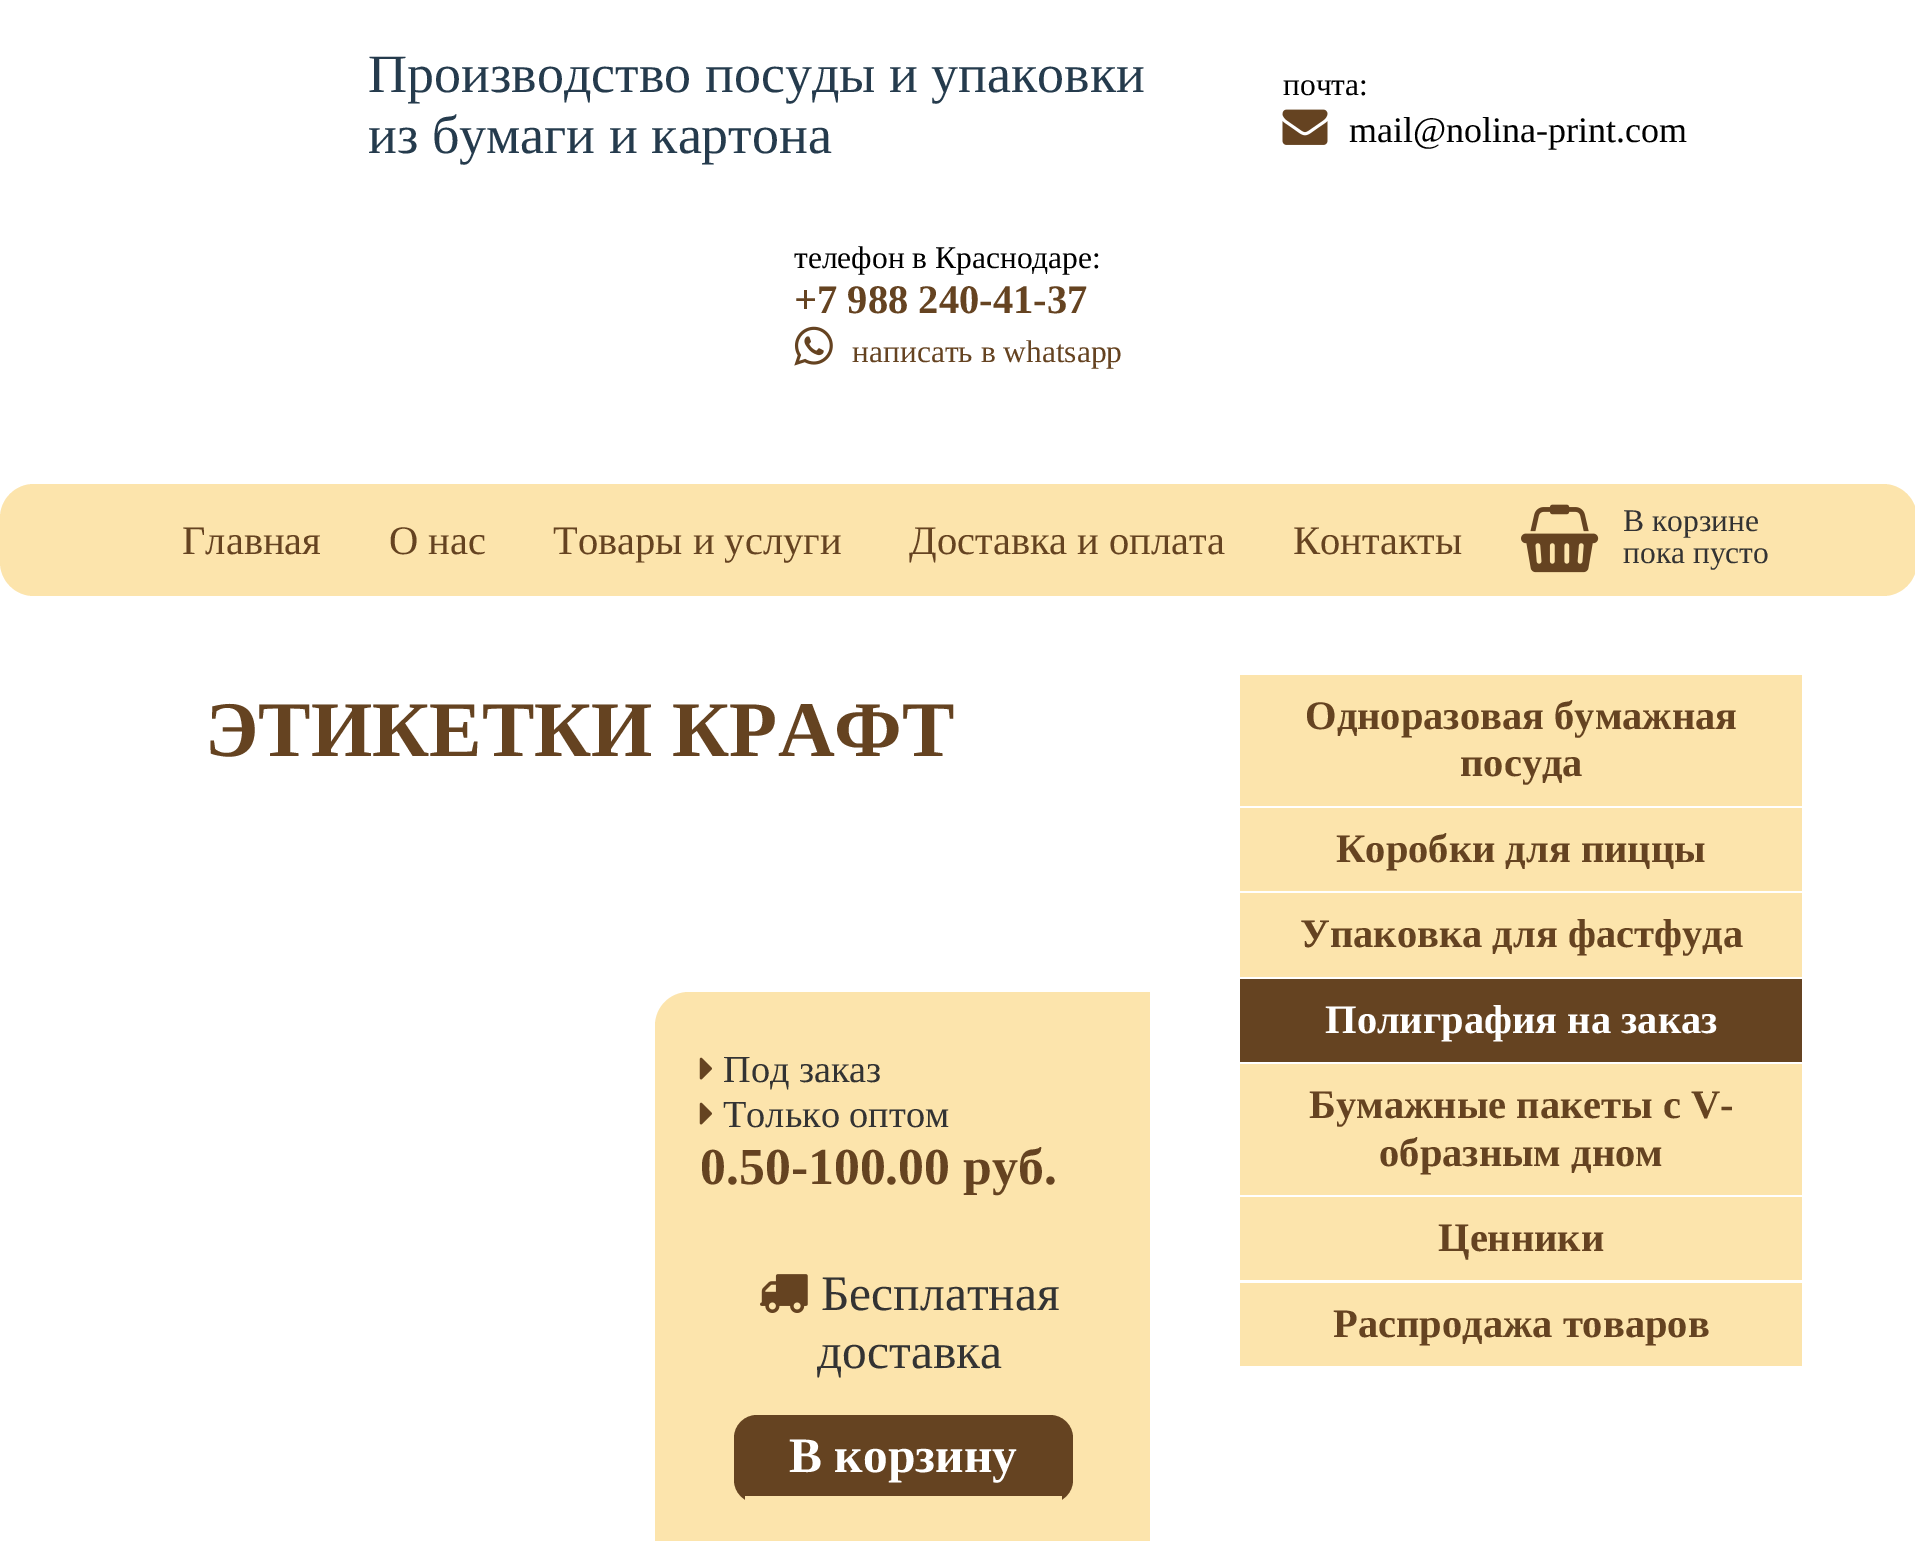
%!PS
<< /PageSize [1915 1541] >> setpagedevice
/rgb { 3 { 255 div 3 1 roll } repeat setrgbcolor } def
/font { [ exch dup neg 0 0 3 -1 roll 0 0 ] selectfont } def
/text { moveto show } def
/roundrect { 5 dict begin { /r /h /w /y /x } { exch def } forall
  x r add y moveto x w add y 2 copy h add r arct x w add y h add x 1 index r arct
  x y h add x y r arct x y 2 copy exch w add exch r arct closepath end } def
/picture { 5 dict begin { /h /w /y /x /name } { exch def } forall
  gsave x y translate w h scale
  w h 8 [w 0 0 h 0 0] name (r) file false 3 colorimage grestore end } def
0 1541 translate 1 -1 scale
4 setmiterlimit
255 255 255 rgb
0 0 1915 1541 rectfill
(img_01.rgb) 1282 109 46 36 picture
(img_02.rgb) 794 326 39 40 picture
252 228 172 rgb
0 484 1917 112 34 roundrect fill
(img_03.rgb) 1521 504 78 69 picture
689 992 moveto 461 0 rlineto 0 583 rlineto -461 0 rlineto -19 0 -34 -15 -34 -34 rcurveto 0 -515 rlineto 0 -19 15 -34 34 -34 rcurveto closepath fill
(img_04.rgb) 699 1057 13 23 picture
(img_04.rgb) 699 1102 13 23 picture
(img_05.rgb) 760 1274 48 39 picture
101 67 33 rgb
734 1415 339 88 23 roundrect fill
252 228 172 rgb
745 1496 317 7 rectfill
1240 675 562 131 rectfill
1240 808 562 83 rectfill
1240 893 562 84 rectfill
101 67 33 rgb
1240 979 562 83 rectfill
252 228 172 rgb
1240 1064 562 131 rectfill
1240 1197 562 83 rectfill
1240 1283 562 83 rectfill
/LiberationSerif-Regular 54 font
37 59 77 rgb
(Производство посуды и упаковки) 368 92 text
(из бумаги и картона) 368 153 text
/LiberationSerif-Regular 31.5 font
0 0 0 rgb
(почта:) 1283 95 text
/LiberationSerif-Regular 36 font
(mail@nolina-print.com) 1349 142 text
/LiberationSerif-Regular 31.5 font
(телефон в Краснодаре:) 794 268 text
/LiberationSerif-Bold 40.5 font
101 67 33 rgb
(+7 988 240-41-37) 794 313 text
/LiberationSerif-Regular 31.5 font
(написать в whatsapp) 852 362 text
/LiberationSerif-Regular 40.5 font
(Главная) 182 554 text
(О нас) 389 554 text
(Товары и услуги) 553 554 text
(Доставка и оплата) 909 554 text
(Контакты) 1293 554 text
/LiberationSerif-Regular 31.5 font
51 51 51 rgb
(В корзине) 1623 531 text
(пока пусто) 1623 563 text
/LiberationSerif-Bold 78.75 font
101 67 33 rgb
(ЭТИКЕТКИ КРАФТ) 205 756 text
/LiberationSerif-Regular 38.25 font
51 51 51 rgb
(Под заказ) 723 1082 text
(Только оптом) 723 1127 text
/LiberationSerif-Bold 51.75 font
101 67 33 rgb
(0.50-100.00 руб.) 700 1184 text
/LiberationSerif-Regular 49.5 font
51 51 51 rgb
(Бесплатная) 821 1310 text
(доставка) 817 1368 text
/LiberationSerif-Bold 49.5 font
255 255 255 rgb
(В корзину) 789 1472 text
/LiberationSerif-Bold 40.5 font
101 67 33 rgb
(Одноразовая бумажная) 1305 729 text
(посуда) 1460 776 text
(Коробки для пиццы) 1336 862 text
(Упаковка для фастфуда) 1300 947 text
255 255 255 rgb
(Полиграфия на заказ) 1325 1033 text
101 67 33 rgb
(Бумажные пакеты с V-) 1309 1118 text
(образным дном) 1379 1166 text
(Ценники) 1438 1251 text
(Распродажа товаров) 1333 1337 text
showpage
